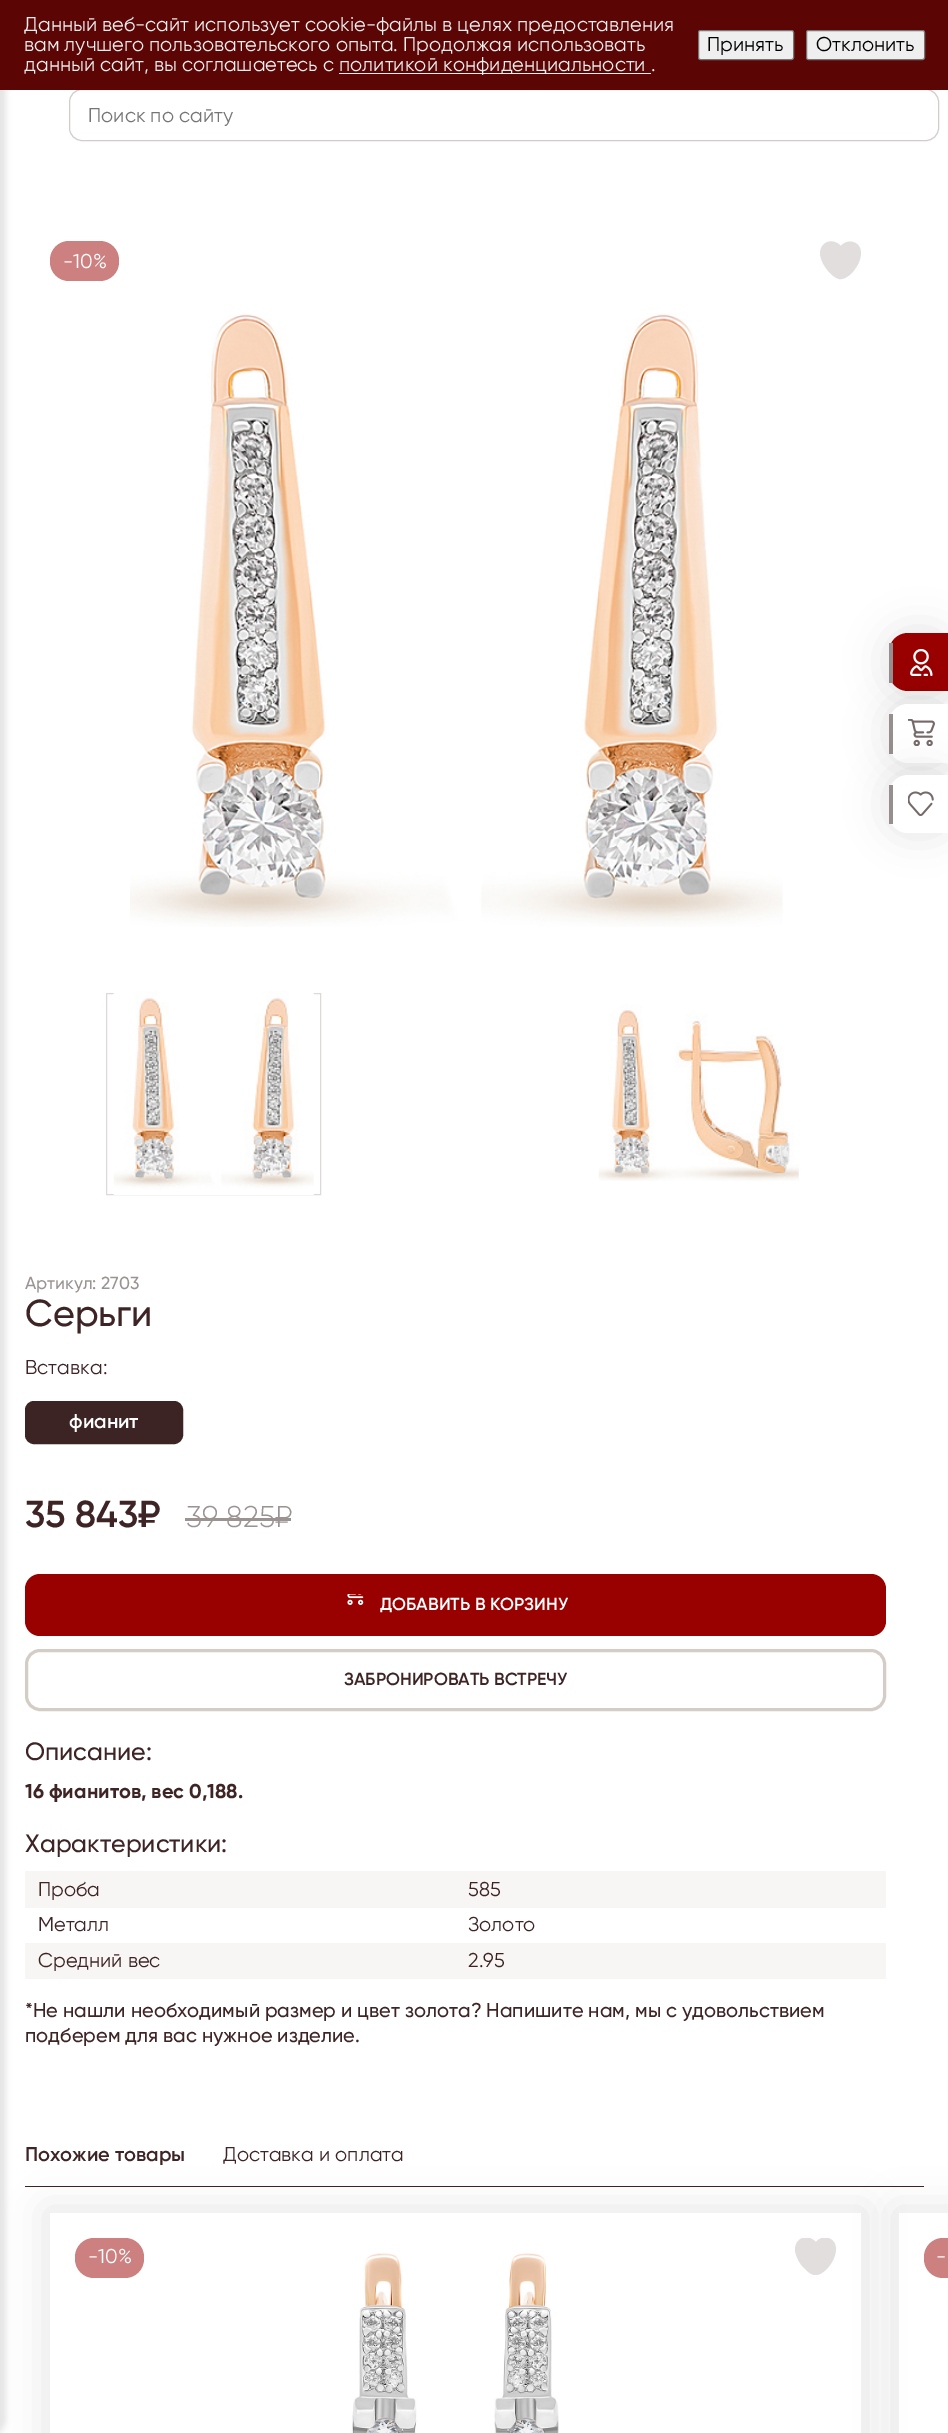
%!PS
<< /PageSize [948 2433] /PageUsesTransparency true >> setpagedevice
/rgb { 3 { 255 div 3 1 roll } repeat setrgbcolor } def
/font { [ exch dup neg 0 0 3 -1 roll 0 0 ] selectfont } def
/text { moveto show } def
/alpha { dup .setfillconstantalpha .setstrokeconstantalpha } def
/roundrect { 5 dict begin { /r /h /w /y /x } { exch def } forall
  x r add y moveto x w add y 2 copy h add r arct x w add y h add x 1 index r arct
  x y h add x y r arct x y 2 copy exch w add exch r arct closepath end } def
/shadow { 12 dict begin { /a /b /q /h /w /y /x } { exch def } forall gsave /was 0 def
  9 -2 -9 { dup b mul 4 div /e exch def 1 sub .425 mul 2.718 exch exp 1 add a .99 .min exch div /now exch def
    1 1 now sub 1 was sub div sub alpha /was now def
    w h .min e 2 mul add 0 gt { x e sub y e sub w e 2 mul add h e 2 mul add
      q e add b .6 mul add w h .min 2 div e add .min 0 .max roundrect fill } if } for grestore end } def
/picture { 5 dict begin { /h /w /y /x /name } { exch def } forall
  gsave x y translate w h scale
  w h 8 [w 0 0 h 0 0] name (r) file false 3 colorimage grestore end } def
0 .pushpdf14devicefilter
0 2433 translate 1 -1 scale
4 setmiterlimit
255 255 255 rgb
0 0 948 2433 rectfill
0 0 0 rgb
-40 -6 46 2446 31 3 0.1 shadow
212 204 204 rgb
69.5 89.5 869 51 12.5 roundrect stroke
92 5 5 rgb
0 0 948 90 rectfill
238 238 238 rgb
339 73 312 1 rectfill
239 239 239 rgb
698.5 30.5 95 29 2 roundrect gsave fill grestore
118 118 118 rgb
stroke
239 239 239 rgb
806.5 30.5 118 29 2 roundrect gsave fill grestore
118 118 118 rgb
stroke
204 128 128 rgb
50 241 69 40 19 roundrect fill
226 222 222 rgb
820 254 moveto 0 -12 12 -17 21 -8 rcurveto 4 -5 11 -6 16 -2 rcurveto 12 10 -6 37 -18 35 rcurveto -4 -1 -7 -4 -10 -7 rcurveto -5 -6 -8 -11 -9 -18 rcurveto closepath eofill
(img_01.rgb) 130 313 653 614 picture
223 216 216 rgb
106.5 993.5 214 201 rectstroke
(img_02.rgb) 113 991 201 204 picture
(img_03.rgb) 598 1004 201 177 picture
61 36 36 rgb
26.5 1402.5 155 40 7.5 roundrect gsave fill grestore
3 setlinewidth
stroke
155 146 146 rgb
185 1518 106 3 rectfill
153 0 0 rgb
25 1574 861 62 15 roundrect fill
(img_04.rgb) 347 1594 17 11 picture
212 205 198 rgb
26.5 1650.5 858 59 13.5 roundrect stroke
248 246 244 rgb
25 1871 861 37 rectfill
25 1943 861 36 rectfill
61 36 36 rgb
25 2186 899 1 rectfill
gsave
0 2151 moveto 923 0 rlineto 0 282 rlineto -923 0 rlineto closepath 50 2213 moveto 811 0 rlineto 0 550 rlineto -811 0 rlineto closepath eoclip newpath
0 0 0 rgb
46 2209 819 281 0 19 0.1 shadow
grestore
204 128 128 rgb
75 2238 69 40 19 roundrect fill
(img_05.rgb) 351 2253 208 180 picture
gsave
795 2238 41 37 rectclip
226 222 222 rgb
795 2250 moveto 0 -12 12 -17 21 -8 rcurveto 4 -5 11 -6 16 -2 rcurveto 12 10 -6 37 -18 35 rcurveto -4 -1 -7 -4 -10 -7 rcurveto -5 -5 -8 -11 -9 -18 rcurveto closepath eofill
grestore
gsave
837 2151 moveto 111 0 rlineto 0 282 rlineto -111 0 rlineto closepath 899 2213 moveto 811 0 rlineto 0 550 rlineto -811 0 rlineto closepath eoclip newpath
0 0 0 rgb
895 2209 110 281 0 19 0.1 shadow
grestore
943 2238 moveto 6 0 rlineto 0 40 rlineto -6 0 rlineto -10.5 0 -19 -8.5 -19 -19 rcurveto 0 -2 rlineto 0 -10.5 8.5 -19 19 -19 rcurveto closepath fill
0 0 0 rgb
885 629 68 66 23 19 0.1 shadow
153 0 0 rgb
908 633 moveto 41 0 rlineto 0 58 rlineto -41 0 rlineto -10.5 0 -19 -8.5 -19 -19 rcurveto 0 -20 rlineto 0 -10.5 8.5 -19 19 -19 rcurveto closepath fill
(img_06.rgb) 910 649 23 27 picture
151 143 143 rgb
889 643 4 40 rectfill
0 0 0 rgb
885 700 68 66 23 19 0.1 shadow
255 255 255 rgb
908 704 moveto 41 0 rlineto 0 59 rlineto -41 0 rlineto -10.5 0 -19 -8.5 -19 -19 rcurveto 0 -21 rlineto 0 -10.5 8.5 -19 19 -19 rcurveto closepath fill
(img_07.rgb) 908 719 27 27 picture
151 143 143 rgb
889 714 4 40 rectfill
0 0 0 rgb
885 771 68 65 23 19 0.1 shadow
255 255 255 rgb
908 775 moveto 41 0 rlineto 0 58 rlineto -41 0 rlineto -10.5 0 -19 -8.5 -19 -19 rcurveto 0 -20 rlineto 0 -10.5 8.5 -19 19 -19 rcurveto closepath fill
(img_08.rgb) 908 791 26 25 picture
151 143 143 rgb
889 785 4 39 rectfill
/Gilroy-Regular 20 font
238 238 238 rgb
(Данный веб-сайт использует cookie-файлы в целях предоставления) 24 31 text
(вам лучшего пользовательского опыта. Продолжая использовать) 24 51 text
(данный сайт, вы соглашаетесь с) 24 71 text
(политикой конфиденциальности .) 339 71 text
0 0 0 rgb
(Принять) 707 51 text
(Отклонить) 816 51 text
117 117 117 rgb
(Поиск по сайту) 88 122 text
255 255 255 rgb
(-10%) 63 268 text
/Gilroy-Medium 17.5 font
155 146 146 rgb
(Артикул: 2703) 25 1289 text
/Gilroy-Medium 37.5 font
62 36 37 rgb
(Серьги) 25 1326 text
/Gilroy-Regular 20 font
(Вставка:) 25 1374 text
/Gilroy-SemiBold 20 font
255 255 255 rgb
(фианит) 69 1428 text
/Gilroy-SemiBold 37.5 font
62 36 37 rgb
(35 843₽) 25 1527 text
/Gilroy-Light 30 font
155 146 146 rgb
(39 825₽) 186 1527 text
/Gilroy-SemiBold 17.5 font
255 255 255 rgb
(ДОБАВИТЬ В КОРЗИНУ) 380 1610 text
62 36 37 rgb
(ЗАБРОНИРОВАТЬ ВСТРЕЧУ) 344 1685 text
/Gilroy-Medium 25 font
(Описание:) 25 1760 text
/Gilroy-Bold 20 font
(16 фианитов, вес 0,188.) 25 1798 text
/Gilroy-Medium 25 font
(Характеристики:) 25 1852 text
/Gilroy-Regular 20 font
(Проба) 38 1896 text
(585) 468 1896 text
(Металл) 38 1931 text
(Золото) 468 1931 text
(Средний вес) 38 1967 text
(2.95) 468 1967 text
/Gilroy-Medium 20 font
(*Не нашли необходимый размер и цвет золота? Напишите нам, мы с удовольствием) 25 2017 text
(подберем для вас нужное изделие.) 25 2042 text
/Gilroy-SemiBold 20 font
(Похожие товары) 25 2161 text
/Gilroy-Regular 20 font
(Доставка и оплата) 223 2161 text
255 255 255 rgb
(-10%) 88 2263 text
(-) 936 2263 text
.poppdf14devicefilter showpage
